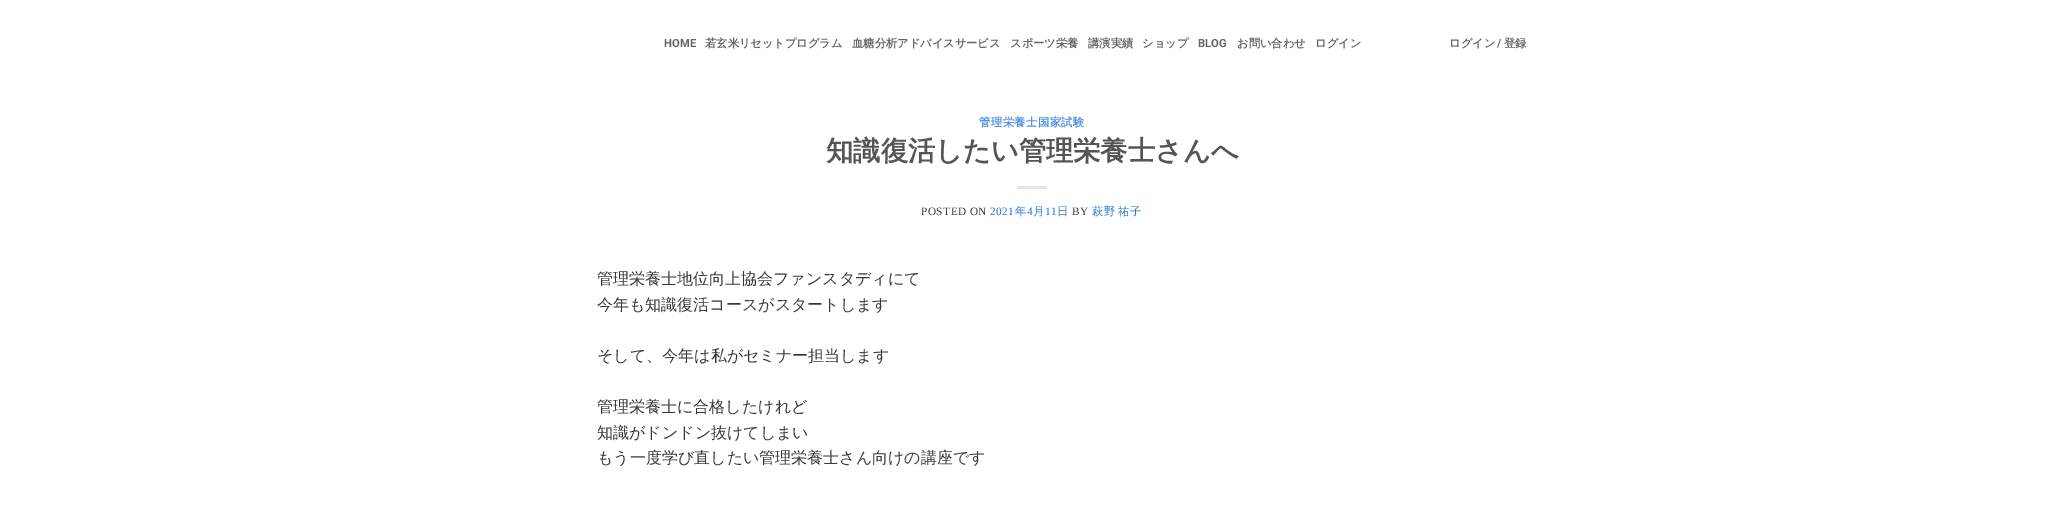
%!PS
<< /PageSize [2063 509] >> setpagedevice
/rgb { 3 { 255 div 3 1 roll } repeat setrgbcolor } def
/font { [ exch dup neg 0 0 3 -1 roll 0 0 ] selectfont } def
/text { moveto show } def
0 509 translate 1 -1 scale
4 setmiterlimit
255 255 255 rgb
0 0 2063 509 rectfill
230 230 230 rgb
1017 186 30 3 rectfill
/Roboto-Bold 11.25 font
101 101 101 rgb
(HOME) 664 47 text
/WenQuanYiZenHei-Bold 11.25 font
(若玄米リセットプログラム) 705 47 text
(血糖分析アドバイスサービス) 852 47 text
(スポーツ栄養) 1010 47 text
(講演実績) 1088 47 text
(ショップ) 1142 47 text
/Roboto-Bold 11.25 font
(BLOG) 1198 47 text
/WenQuanYiZenHei-Bold 11.25 font
(お問い合わせ) 1237 47 text
(ログイン) 1315 47 text
(ログイン) 1449 47 text
/Roboto-Bold 11.25 font
(/) 1497 47 text
/WenQuanYiZenHei-Bold 11.25 font
(登録) 1504 47 text
79 145 226 rgb
979 126 moveto 0.5 0 (管理栄養士国家試験) ashow
/WenQuanYiZenHei-Bold 27.25 font
85 85 85 rgb
(知識復活したい管理栄養士さんへ) 826 160 text
/LiberationSerif-Regular 11.25 font
56 56 56 rgb
921 215 moveto 0.5 0 (POSTED ON) ashow
35 118 219 rgb
990 215 moveto 0.5 0 (2021) ashow
/WenQuanYiZenHei-Medium 11.25 font
1015 215 moveto 0.5 0 (年) ashow
/LiberationSerif-Regular 11.25 font
1027 215 moveto 0.5 0 (4) ashow
/WenQuanYiZenHei-Medium 11.25 font
1033 215 moveto 0.5 0 (月) ashow
/LiberationSerif-Regular 11.25 font
1045 215 moveto 0.5 0 (11) ashow
/WenQuanYiZenHei-Medium 11.25 font
1057 215 moveto 0.5 0 (日) ashow
/LiberationSerif-Regular 11.25 font
56 56 56 rgb
1072 215 moveto 0.5 0 (BY) ashow
/WenQuanYiZenHei-Medium 11.25 font
35 118 219 rgb
1092 215 moveto -1 0 32 0.5 0 (萩野 祐子) awidthshow
/WenQuanYiZenHei-Medium 16 font
56 56 56 rgb
(管理栄養士地位向上協会ファンスタディにて) 597 284 text
(今年も知識復活コースがスタートします) 597 310 text
(そして、今年は私がセミナー担当します) 597 361 text
(管理栄養士に合格したけれど) 597 412 text
(知識がドンドン抜けてしまい) 597 438 text
(もう一度学び直したい管理栄養士さん向けの講座です) 597 463 text
showpage
